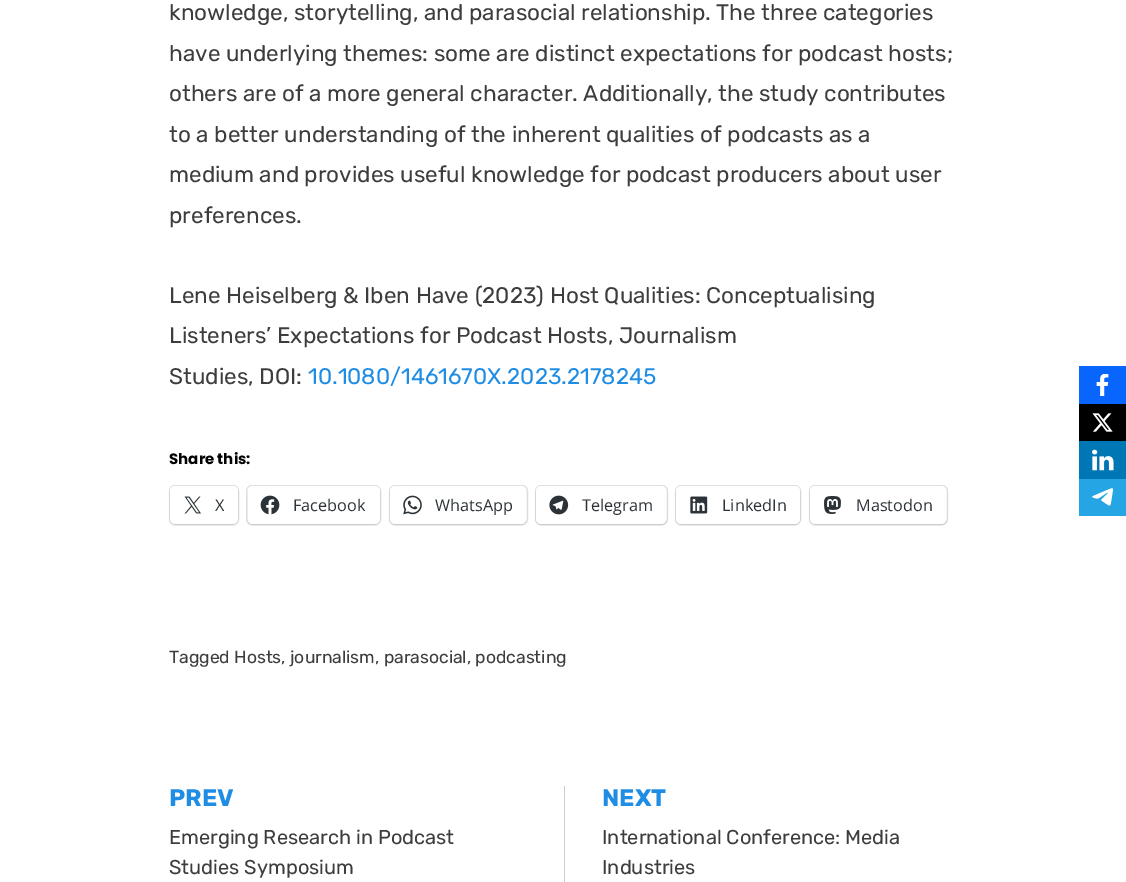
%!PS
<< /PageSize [1126 882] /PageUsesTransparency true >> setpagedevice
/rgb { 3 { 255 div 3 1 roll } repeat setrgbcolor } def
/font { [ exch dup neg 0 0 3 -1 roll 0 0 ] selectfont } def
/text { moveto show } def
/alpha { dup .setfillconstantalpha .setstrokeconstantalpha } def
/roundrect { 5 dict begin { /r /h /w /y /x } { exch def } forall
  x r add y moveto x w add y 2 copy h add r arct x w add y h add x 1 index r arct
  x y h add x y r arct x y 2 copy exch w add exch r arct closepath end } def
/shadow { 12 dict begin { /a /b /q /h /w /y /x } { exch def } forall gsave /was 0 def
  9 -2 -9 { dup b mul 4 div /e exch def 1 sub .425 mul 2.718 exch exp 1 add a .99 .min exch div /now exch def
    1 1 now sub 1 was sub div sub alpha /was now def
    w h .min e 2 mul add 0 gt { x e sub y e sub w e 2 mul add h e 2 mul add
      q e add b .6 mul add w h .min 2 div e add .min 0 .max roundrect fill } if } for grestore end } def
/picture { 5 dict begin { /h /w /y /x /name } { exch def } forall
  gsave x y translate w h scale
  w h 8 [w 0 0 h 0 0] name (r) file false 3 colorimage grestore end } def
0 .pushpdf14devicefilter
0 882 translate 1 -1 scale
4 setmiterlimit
255 255 255 rgb
0 0 1126 882 rectfill
224 224 224 rgb
169.5 485.5 69 39 5.5 roundrect stroke
0 0 0 rgb
170 488 68 37 5 1 0.12 shadow
255 255 255 rgb
170 486 68 38 5 roundrect fill
(img_01.rgb) 184 496 17 18 picture
224 224 224 rgb
246.5 485.5 134 39 5.5 roundrect stroke
0 0 0 rgb
248 488 132 37 5 1 0.12 shadow
255 255 255 rgb
248 486 132 38 5 roundrect fill
(img_02.rgb) 260 495 20 20 picture
224 224 224 rgb
389.5 485.5 138 39 5.5 roundrect stroke
0 0 0 rgb
390 488 136 37 5 1 0.12 shadow
255 255 255 rgb
390 486 136 38 5 roundrect fill
(img_03.rgb) 403 495 19 20 picture
224 224 224 rgb
535.5 485.5 132 39 5.5 roundrect stroke
0 0 0 rgb
536 488 130 37 5 1 0.12 shadow
255 255 255 rgb
536 486 130 38 5 roundrect fill
(img_04.rgb) 549 495 20 20 picture
224 224 224 rgb
675.5 485.5 125 39 5.5 roundrect stroke
0 0 0 rgb
676 488 124 37 5 1 0.12 shadow
255 255 255 rgb
676 486 124 38 5 roundrect fill
(img_05.rgb) 690 496 18 18 picture
224 224 224 rgb
809.5 485.5 138 39 5.5 roundrect stroke
0 0 0 rgb
810 488 136 37 5 1 0.12 shadow
255 255 255 rgb
810 486 136 38 5 roundrect fill
(img_06.rgb) 824 495 17 19 picture
204 204 204 rgb
564 786 1 96 rectfill
8 102 255 rgb
1079 366 47 38 rectfill
(img_07.rgb) 1096 374 13 22 picture
0 0 0 rgb
1079 404 47 37 rectfill
(img_08.rgb) 1092 413 21 19 picture
0 119 181 rgb
1079 441 47 38 rectfill
(img_09.rgb) 1092 449 22 22 picture
38 165 228 rgb
1079 479 47 37 rectfill
(img_10.rgb) 1092 488 22 18 picture
/Rubik-Regular 22.5 font
61 61 61 rgb
(knowledge, storytelling, and parasocial relationship. The three categories) 169 20 text
(have underlying themes: some are distinct expectations for podcast hosts;) 169 61 text
(others are of a more general character. Additionally, the study contributes) 169 101 text
(to a better understanding of the inherent qualities of podcasts as a) 169 142 text
(medium and provides useful knowledge for podcast producers about user) 169 182 text
(preferences.) 169 223 text
(Lene Heiselberg & Iben Have \(2023\) Host Qualities: Conceptualising) 169 303 text
(Listeners’ Expectations for Podcast Hosts, Journalism) 169 343 text
(Studies, DOI:) 169 384 text
32 141 229 rgb
(10.1080/1461670X.2023.2178245) 308 384 text
/Poppins-Bold 15 font
2 2 2 rgb
(Share this:) 169 464 text
/OpenSans-Regular 16.25 font
44 51 56 rgb
(X) 215 511 text
(Facebook) 293 511 text
(WhatsApp) 435 511 text
(Telegram) 582 511 text
(LinkedIn) 722 511 text
(Mastodon) 856 511 text
/Rubik-Regular 17.5 font
61 61 61 rgb
(Tagged Hosts, journalism, parasocial, podcasting) 169 663 text
/Rubik-Bold 24 font
32 141 229 rgb
(PREV) 169 806 text
/Rubik-Regular 20 font
61 61 61 rgb
(Emerging Research in Podcast) 169 844 text
(Studies Symposium) 169 874 text
/Rubik-Bold 24 font
32 141 229 rgb
(NEXT) 602 806 text
/Rubik-Regular 20 font
61 61 61 rgb
(International Conference: Media) 602 844 text
(Industries) 602 874 text
.poppdf14devicefilter showpage
